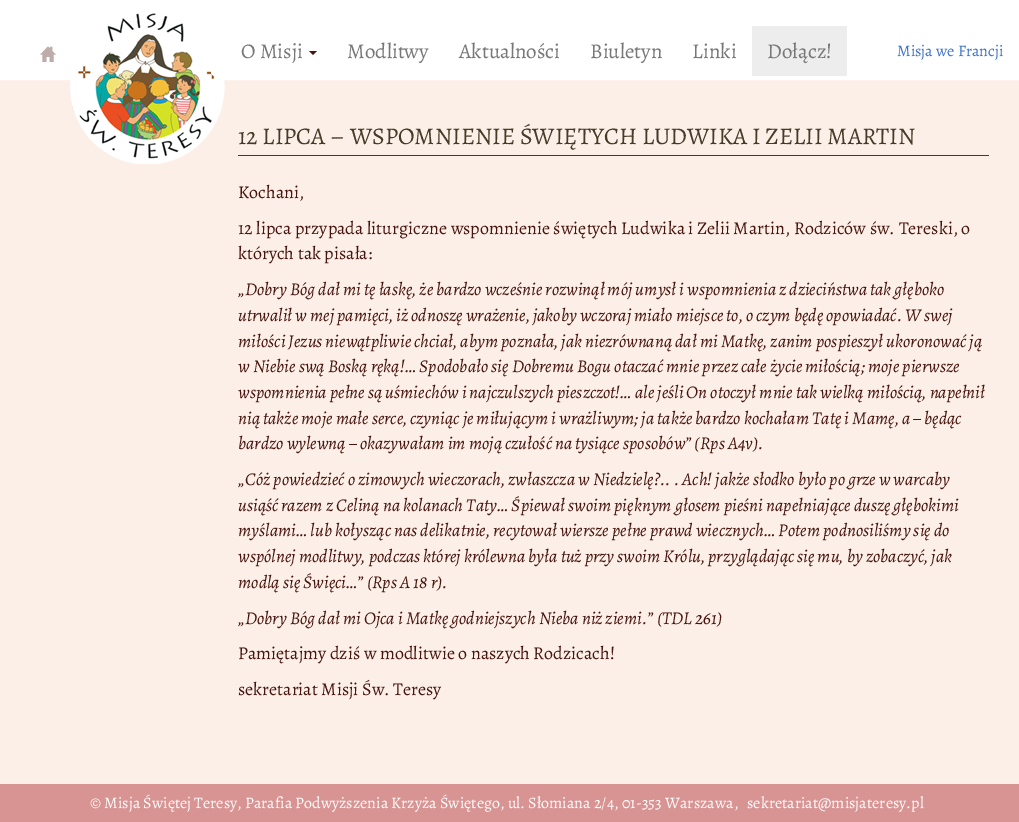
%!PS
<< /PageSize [1019 822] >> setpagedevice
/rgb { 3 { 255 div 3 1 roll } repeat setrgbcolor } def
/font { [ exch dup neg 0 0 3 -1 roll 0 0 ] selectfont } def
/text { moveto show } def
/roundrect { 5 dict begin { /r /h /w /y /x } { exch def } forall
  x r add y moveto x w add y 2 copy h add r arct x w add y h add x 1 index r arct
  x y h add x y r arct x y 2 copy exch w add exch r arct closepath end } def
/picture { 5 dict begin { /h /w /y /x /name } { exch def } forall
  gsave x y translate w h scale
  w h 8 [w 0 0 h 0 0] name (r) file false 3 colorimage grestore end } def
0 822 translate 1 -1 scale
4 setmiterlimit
255 255 255 rgb
0 0 1019 822 rectfill
(img_01.rgb) 40 46 16 16 picture
252 239 232 rgb
0 81 1019 703 rectfill
253 242 237 rgb
0 80 1019 1 rectfill
(img_02.rgb) 70 13 155 151 picture
255 255 255 rgb
211 26 808 50 4 roundrect fill
71 21 13 rgb
309 51 moveto 8 0 rlineto -4 4 rlineto closepath fill
237 237 237 rgb
752 26 95 50 rectfill
70 59 38 rgb
238 155 751 1 rectfill
216 148 147 rgb
0 784 1019 38 rectfill
/Alegreya-Regular 21 font
119 119 119 rgb
(O Misji) 241 58 text
(Modlitwy) 347 58 text
(Aktualności) 459 58 text
(Biuletyn) 590 58 text
(Linki) 692 58 text
(Dołącz!) 767 58 text
/Alegreya-Regular 16 font
59 114 198 rgb
(Misja we Francji) 897 56 text
/Alegreya-Regular 24 font
70 59 38 rgb
(12 LIPCA – WSPOMNIENIE ŚWIĘTYCH LUDWIKA I ZELII MARTIN) 238 144 text
/Alegreya-Regular 18 font
71 21 13 rgb
(Kochani,) 238 198 text
(12 lipca przypada liturgiczne wspomnienie świętych Ludwika i Zelii Martin, Rodziców św. Tereski, o) 238 234 text
(których tak pisała:) 238 259 text
/Alegreya-Italic 18 font
(„Dobry Bóg dał mi tę łaskę, że bardzo wcześnie rozwinął mój umysł i wspomnienia z dzieciństwa tak głęboko) 238 295 text
(utrwalił w mej pamięci, iż odnoszę wrażenie, jakoby wczoraj miało miejsce to, o czym będę opowiadać. W swej) 238 321 text
(miłości Jezus niewątpliwie chciał, abym poznała, jak niezrównaną dał mi Matkę, zanim pospieszył ukoronować ją) 238 347 text
(w Niebie swą Boską ręką!… Spodobało się Dobremu Bogu otaczać mnie przez całe życie miłością; moje pierwsze) 238 372 text
(wspomnienia pełne są uśmiechów i najczulszych pieszczot!… ale jeśli On otoczył mnie tak wielką miłością, napełnił) 238 398 text
(nią także moje małe serce, czyniąc je miłującym i wrażliwym; ja także bardzo kochałam Tatę i Mamę, a – będąc) 238 424 text
(bardzo wylewną – okazywałam im moją czułość na tysiące sposobów” \(Rps A4v\).) 238 449 text
(„Cóż powiedzieć o zimowych wieczorach, zwłaszcza w Niedzielę?.. . Ach! jakże słodko było po grze w warcaby) 238 485 text
(usiąść razem z Celiną na kolanach Taty… Śpiewał swoim pięknym głosem pieśni napełniające duszę głębokimi) 238 511 text
(myślami… lub kołysząc nas delikatnie, recytował wiersze pełne prawd wiecznych… Potem podnosiliśmy się do) 238 536 text
(wspólnej modlitwy, podczas której królewna była tuż przy swoim Królu, przyglądając się mu, by zobaczyć, jak) 238 562 text
(modlą się Święci…” \(Rps A 18 r\).) 238 588 text
(„Dobry Bóg dał mi Ojca i Matkę godniejszych Nieba niż ziemi.” \(TDL 261\)) 238 624 text
/Alegreya-Regular 18 font
(Pamiętajmy dziś w modlitwie o naszych Rodzicach!) 238 659 text
(sekretariat Misji Św. Teresy) 238 695 text
/Alegreya-Regular 16 font
254 254 254 rgb
(© Misja Świętej Teresy, Parafia Podwyższenia Krzyża Świętego, ul. Słomiana 2/4, 01-353 Warszawa,) 90 808 text
(sekretariat@misjateresy.pl) 747 808 text
showpage
